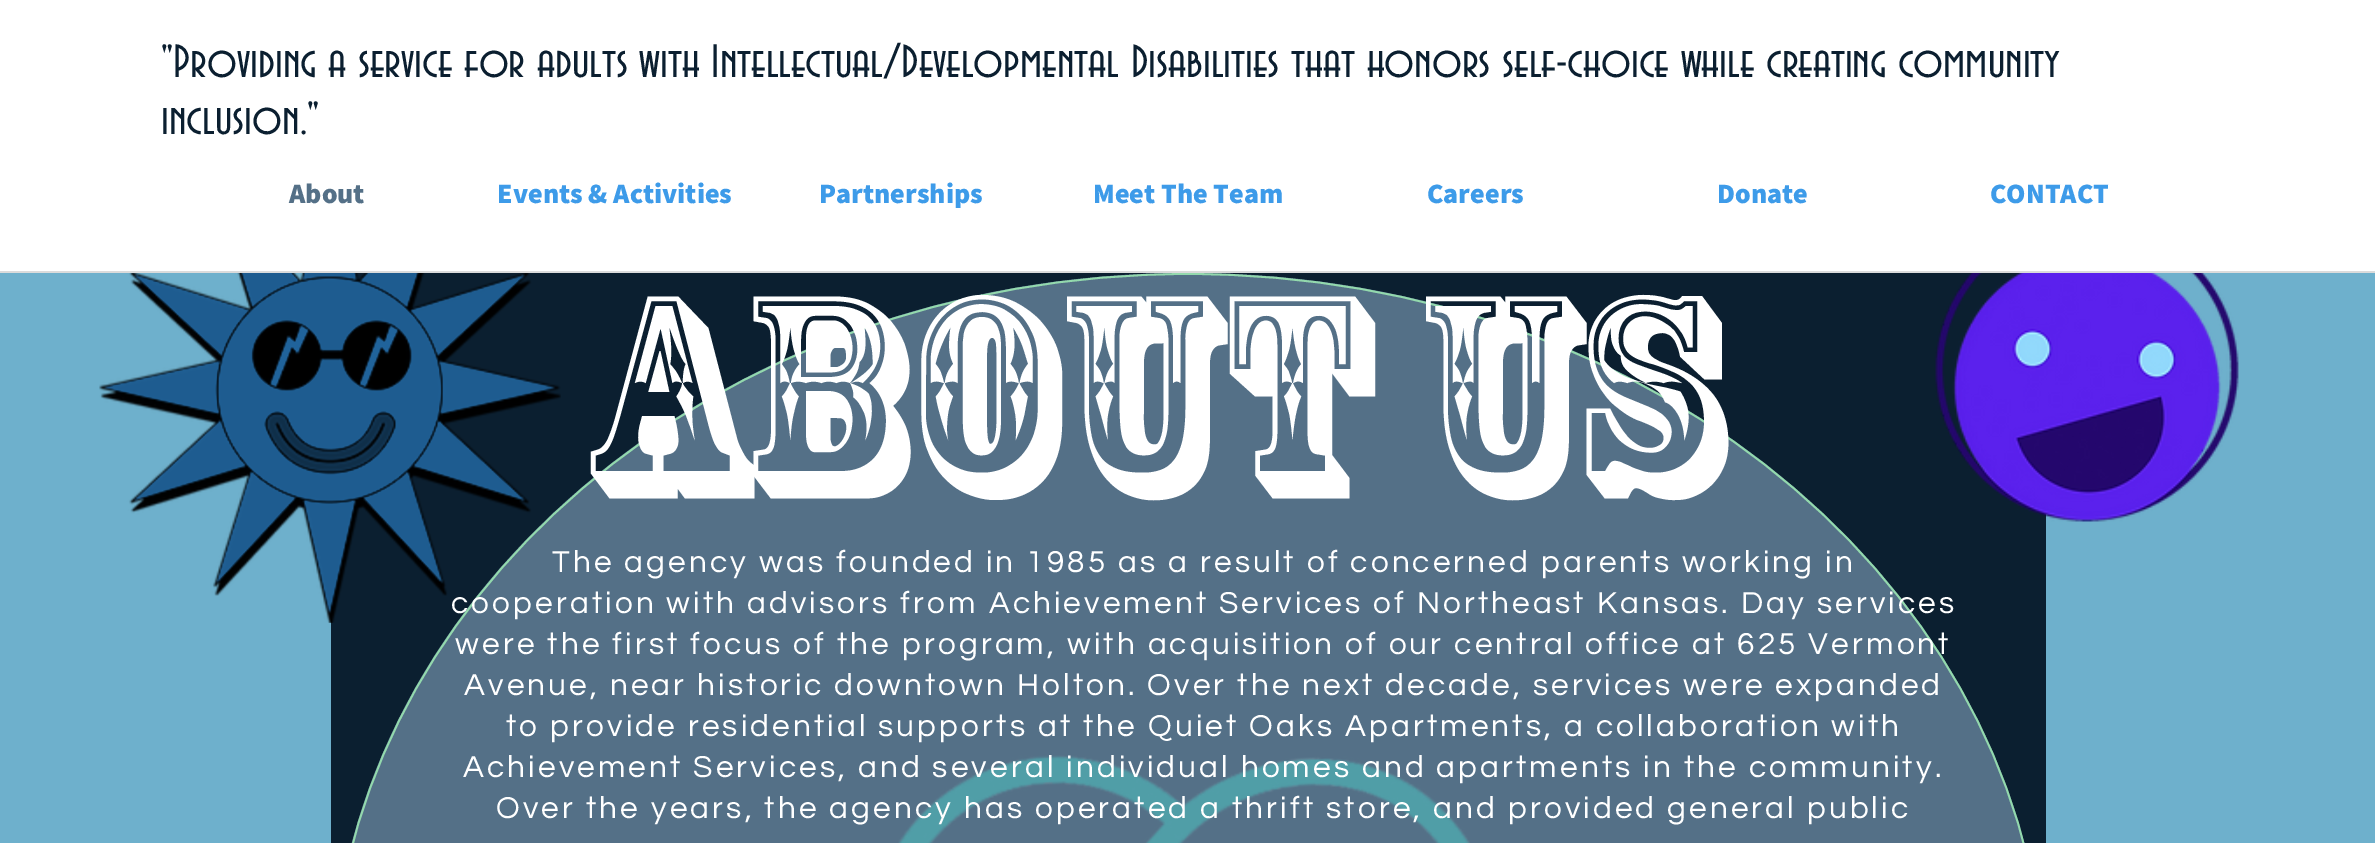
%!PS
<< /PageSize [2375 843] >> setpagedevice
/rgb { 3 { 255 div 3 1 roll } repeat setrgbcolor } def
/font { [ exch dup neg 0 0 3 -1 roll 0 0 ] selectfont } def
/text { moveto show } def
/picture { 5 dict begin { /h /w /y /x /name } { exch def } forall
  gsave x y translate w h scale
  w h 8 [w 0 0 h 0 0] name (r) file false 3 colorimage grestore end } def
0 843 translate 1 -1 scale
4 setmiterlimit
110 176 204 rgb
0 0 2375 843 rectfill
219 219 219 rgb
0 271 2375 2 rectfill
255 255 255 rgb
0 0 2375 271 rectfill
11 31 48 rgb
331 273 1715 570 rectfill
(img_01.rgb) 99 273 462 350 picture
84 112 135 rgb
1188 273 moveto 473.5 0 857.5 328 857.5 733 rcurveto 0 405 -384 733 -857.5 733 rcurveto -473.5 0 -857.5 -328 -857.5 -733 rcurveto 0 -405 384 -733 857.5 -733 rcurveto closepath fill
147 217 173 rgb
1.8 setlinewidth
1188 274 moveto 473.5 0 857 328 857 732 rcurveto 0 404.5 -383.5 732.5 -857 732.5 rcurveto -473 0 -856.5 -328 -856.5 -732.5 rcurveto 0 -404 383.5 -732 856.5 -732 rcurveto closepath stroke
(img_02.rgb) 1935 273 304 249 picture
(img_03.rgb) 898 755 572 88 picture
/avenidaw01-Regular 49 font
11 31 48 rgb
("Providing a service for adults with Intellectual/Developmental Disabilities that honors self-choice while creating community) 161 77 text
(inclusion.") 161 134 text
/Assistant-ExtraBold 28 font
84 112 135 rgb
(About) 289 203 text
61 155 233 rgb
(Events & Activities) 497 203 text
(Partnerships) 819 203 text
(Meet The Team) 1093 203 text
(Careers) 1427 203 text
(Donate) 1717 203 text
(CONTACT) 1990 203 text
/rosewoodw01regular-Regular 269.5 font
255 255 255 rgb
(ABOUT US) 583 471 text
/Questrial-Regular 31.5 font
552 572 moveto 3.15 0 (The agency was founded in 1985 as a result of concerned parents working in) ashow
451 613 moveto 3.15 0 (cooperation with advisors from Achievement Services of Northeast Kansas. Day services) ashow
455 654 moveto 3.15 0 (were the first focus of the program, with acquisition of our central office at 625 Vermont) ashow
464 695 moveto 3.15 0 (Avenue, near historic downtown Holton. Over the next decade, services were expanded) ashow
506 736 moveto 3.15 0 (to provide residential supports at the Quiet Oaks Apartments, a collaboration with) ashow
463 777 moveto 3.15 0 (Achievement Services, and several individual homes and apartments in the community.) ashow
496 818 moveto 3.15 0 (Over the years, the agency has operated a thrift store, and provided general public) ashow
showpage
